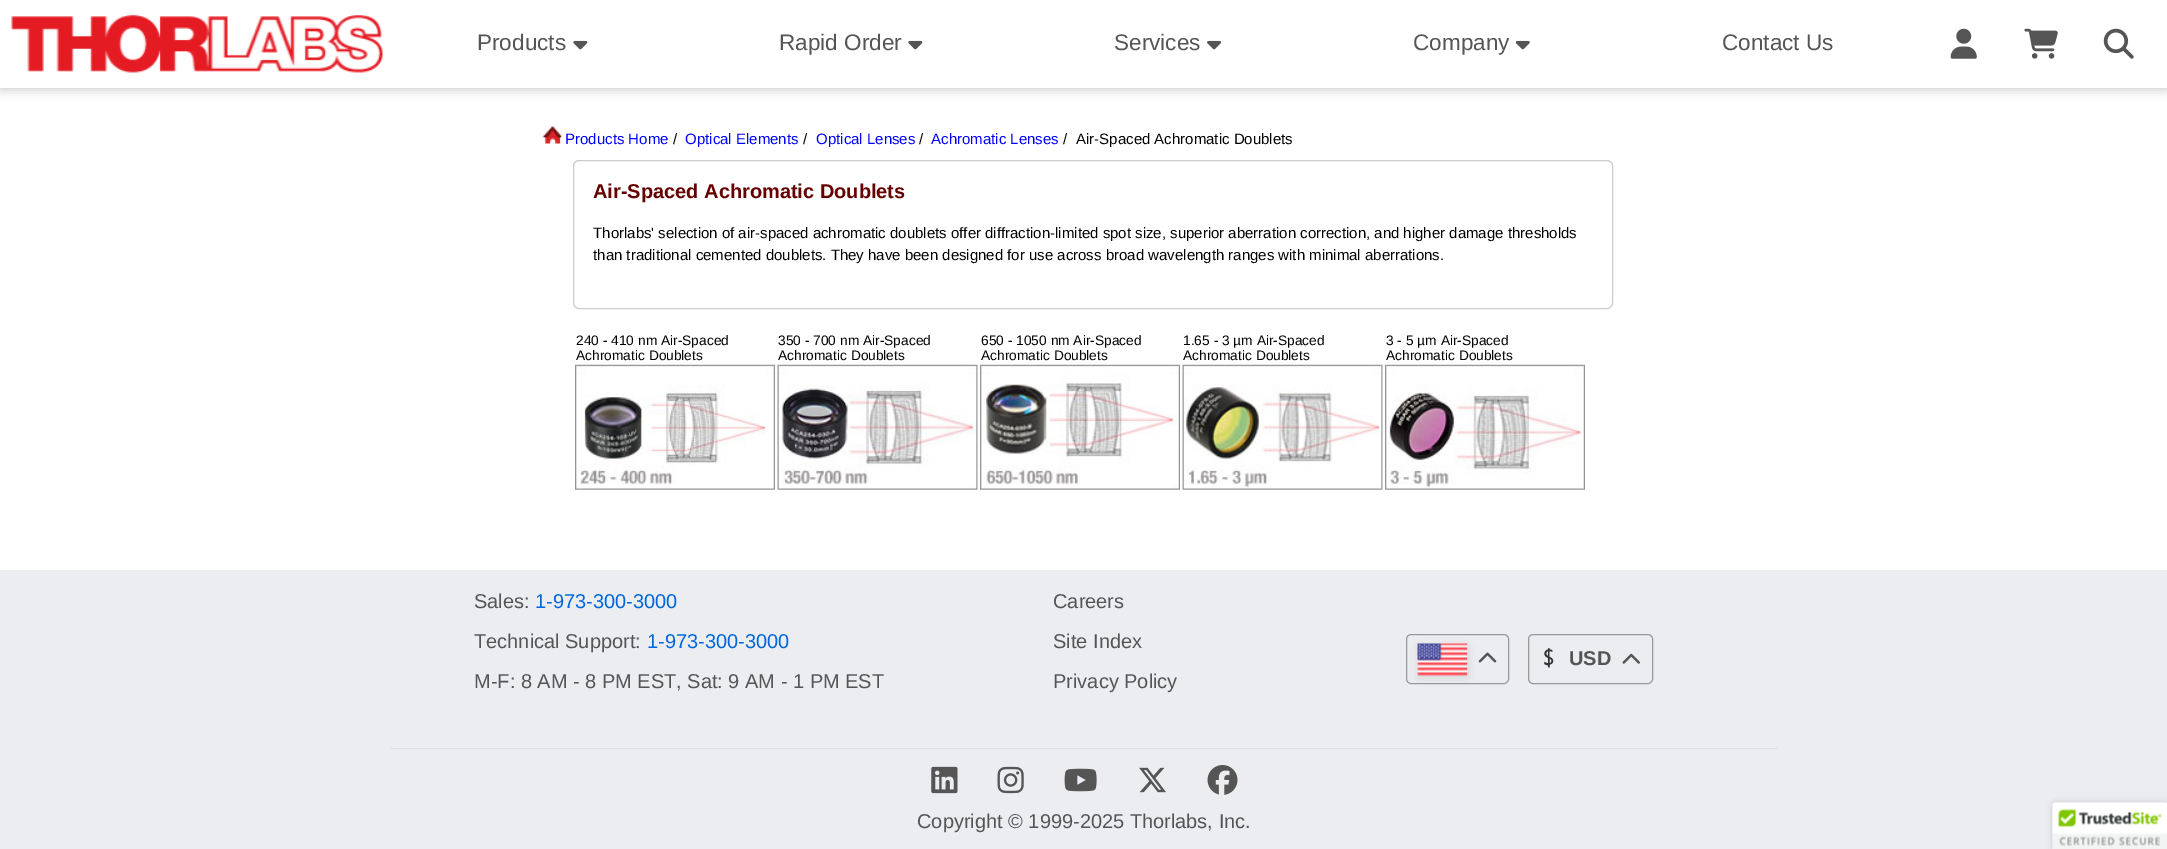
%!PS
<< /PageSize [2167 849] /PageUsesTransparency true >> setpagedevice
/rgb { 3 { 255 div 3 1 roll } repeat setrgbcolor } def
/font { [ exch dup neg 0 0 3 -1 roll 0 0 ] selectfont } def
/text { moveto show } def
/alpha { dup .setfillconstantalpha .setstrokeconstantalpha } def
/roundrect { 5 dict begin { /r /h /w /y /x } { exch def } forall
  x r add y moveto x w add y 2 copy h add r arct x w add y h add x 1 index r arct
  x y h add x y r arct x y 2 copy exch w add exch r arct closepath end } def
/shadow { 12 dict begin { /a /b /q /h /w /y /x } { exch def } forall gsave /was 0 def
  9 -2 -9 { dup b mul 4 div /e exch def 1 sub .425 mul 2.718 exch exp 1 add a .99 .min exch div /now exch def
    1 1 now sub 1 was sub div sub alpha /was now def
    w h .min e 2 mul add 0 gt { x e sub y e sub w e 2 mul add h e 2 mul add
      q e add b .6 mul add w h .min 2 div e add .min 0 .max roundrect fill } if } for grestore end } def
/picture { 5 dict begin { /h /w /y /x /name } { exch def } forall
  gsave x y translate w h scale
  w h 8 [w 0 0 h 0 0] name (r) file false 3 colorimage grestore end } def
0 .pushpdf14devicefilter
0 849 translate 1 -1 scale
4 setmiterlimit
255 255 255 rgb
0 0 2167 849 rectfill
0 0 0 rgb
0 3 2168 87 0 5 0.2 shadow
255 255 255 rgb
0 0 2167 88 rectfill
(img_01.rgb) 11 14 372 59 picture
(img_02.rgb) 573 40 15 10 picture
(img_02.rgb) 908 40 15 10 picture
(img_03.rgb) 1207 40 15 10 picture
(img_04.rgb) 1515 40 15 10 picture
(img_05.rgb) 1950 28 27 31 picture
(img_06.rgb) 2024 28 34 31 picture
(img_07.rgb) 2103 28 31 31 picture
(img_08.rgb) 542 125 20 19 picture
204 204 204 rgb
573.5 160.5 1039 148 5.5 roundrect stroke
(img_09.rgb) 575 364 200 126 picture
(img_10.rgb) 777 364 201 126 picture
(img_11.rgb) 980 364 200 126 picture
(img_12.rgb) 1182 364 201 126 picture
(img_13.rgb) 1385 364 200 126 picture
235 237 240 rgb
0 570 2167 279 rectfill
153 153 153 rgb
1406.5 634.5 102 49 4.5 roundrect stroke
0 0 0 rgb
1418 646 50 32 0 4 0.1 shadow
(img_14.rgb) 1417 643 51 33 picture
(img_15.rgb) 1478 652 19 11 picture
153 153 153 rgb
1528.5 634.5 124 49 4.5 roundrect stroke
(img_16.rgb) 1544 648 10 20 picture
(img_17.rgb) 1622 653 18 11 picture
222 226 230 rgb
390 748 1388 1 rectfill
(img_18.rgb) 931 766 27 28 picture
(img_19.rgb) 997 766 27 28 picture
(img_20.rgb) 1064 768 33 24 picture
(img_21.rgb) 1139 767 27 26 picture
(img_22.rgb) 1207 765 31 30 picture
0 0 0 rgb
2053 803 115 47 2.5 3 0.2 shadow
255 255 255 rgb
2055.5 803 moveto 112.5 0 rlineto 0 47 rlineto -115 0 rlineto 0 -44.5 rlineto 0 -1.5 1 -2.5 2.5 -2.5 rcurveto closepath fill
(img_23.rgb) 2052 802 115 47 picture
/LiberationSans-Regular 22.5 font
85 85 85 rgb
(Products) 477 50 text
(Rapid Order) 779 50 text
(Services) 1114 50 text
(Company) 1413 50 text
(Contact Us) 1722 50 text
/LiberationSans-Regular 15 font
0 0 255 rgb
(Products Home) 565 144 text
0 0 0 rgb
(/) 673 144 text
0 0 255 rgb
(Optical Elements) 685 144 text
0 0 0 rgb
(/) 803 144 text
0 0 255 rgb
(Optical Lenses) 816 144 text
0 0 0 rgb
(/) 919 144 text
0 0 255 rgb
(Achromatic Lenses) 931 144 text
0 0 0 rgb
(/) 1063 144 text
(Air-Spaced Achromatic Doublets) 1076 144 text
/LiberationSans-Bold 20 font
102 0 0 rgb
(Air-Spaced Achromatic Doublets) 593 198 text
/LiberationSans-Regular 15 font
0 0 0 rgb
(Thorlabs' selection of air-spaced achromatic doublets offer diffraction-limited spot size, superior aberration correction, and higher damage thresholds) 593 238 text
(than traditional cemented doublets. They have been designed for use across broad wavelength ranges with minimal aberrations.) 593 260 text
/LiberationSans-Regular 13.75 font
(240 - 410 nm Air-Spaced) 576 345 text
(Achromatic Doublets) 576 360 text
(350 - 700 nm Air-Spaced) 778 345 text
(Achromatic Doublets) 778 360 text
(650 - 1050 nm Air-Spaced) 981 345 text
(Achromatic Doublets) 981 360 text
(1.65 - 3 µm Air-Spaced) 1183 345 text
(Achromatic Doublets) 1183 360 text
(3 - 5 µm Air-Spaced) 1386 345 text
(Achromatic Doublets) 1386 360 text
/LiberationSans-Regular 20 font
85 85 85 rgb
(Sales:) 474 608 text
0 102 221 rgb
(1-973-300-3000) 535 608 text
85 85 85 rgb
(Technical Support:) 474 648 text
0 102 221 rgb
(1-973-300-3000) 647 648 text
85 85 85 rgb
(M-F: 8 AM - 8 PM EST, Sat: 9 AM - 1 PM EST) 474 688 text
(Careers) 1053 608 text
(Site Index) 1053 648 text
(Privacy Policy) 1053 688 text
/LiberationSans-Bold 20 font
(USD) 1569 665 text
/LiberationSans-Regular 20 font
(Copyright © 1999-2025 Thorlabs, Inc.) 917 828 text
.poppdf14devicefilter showpage
